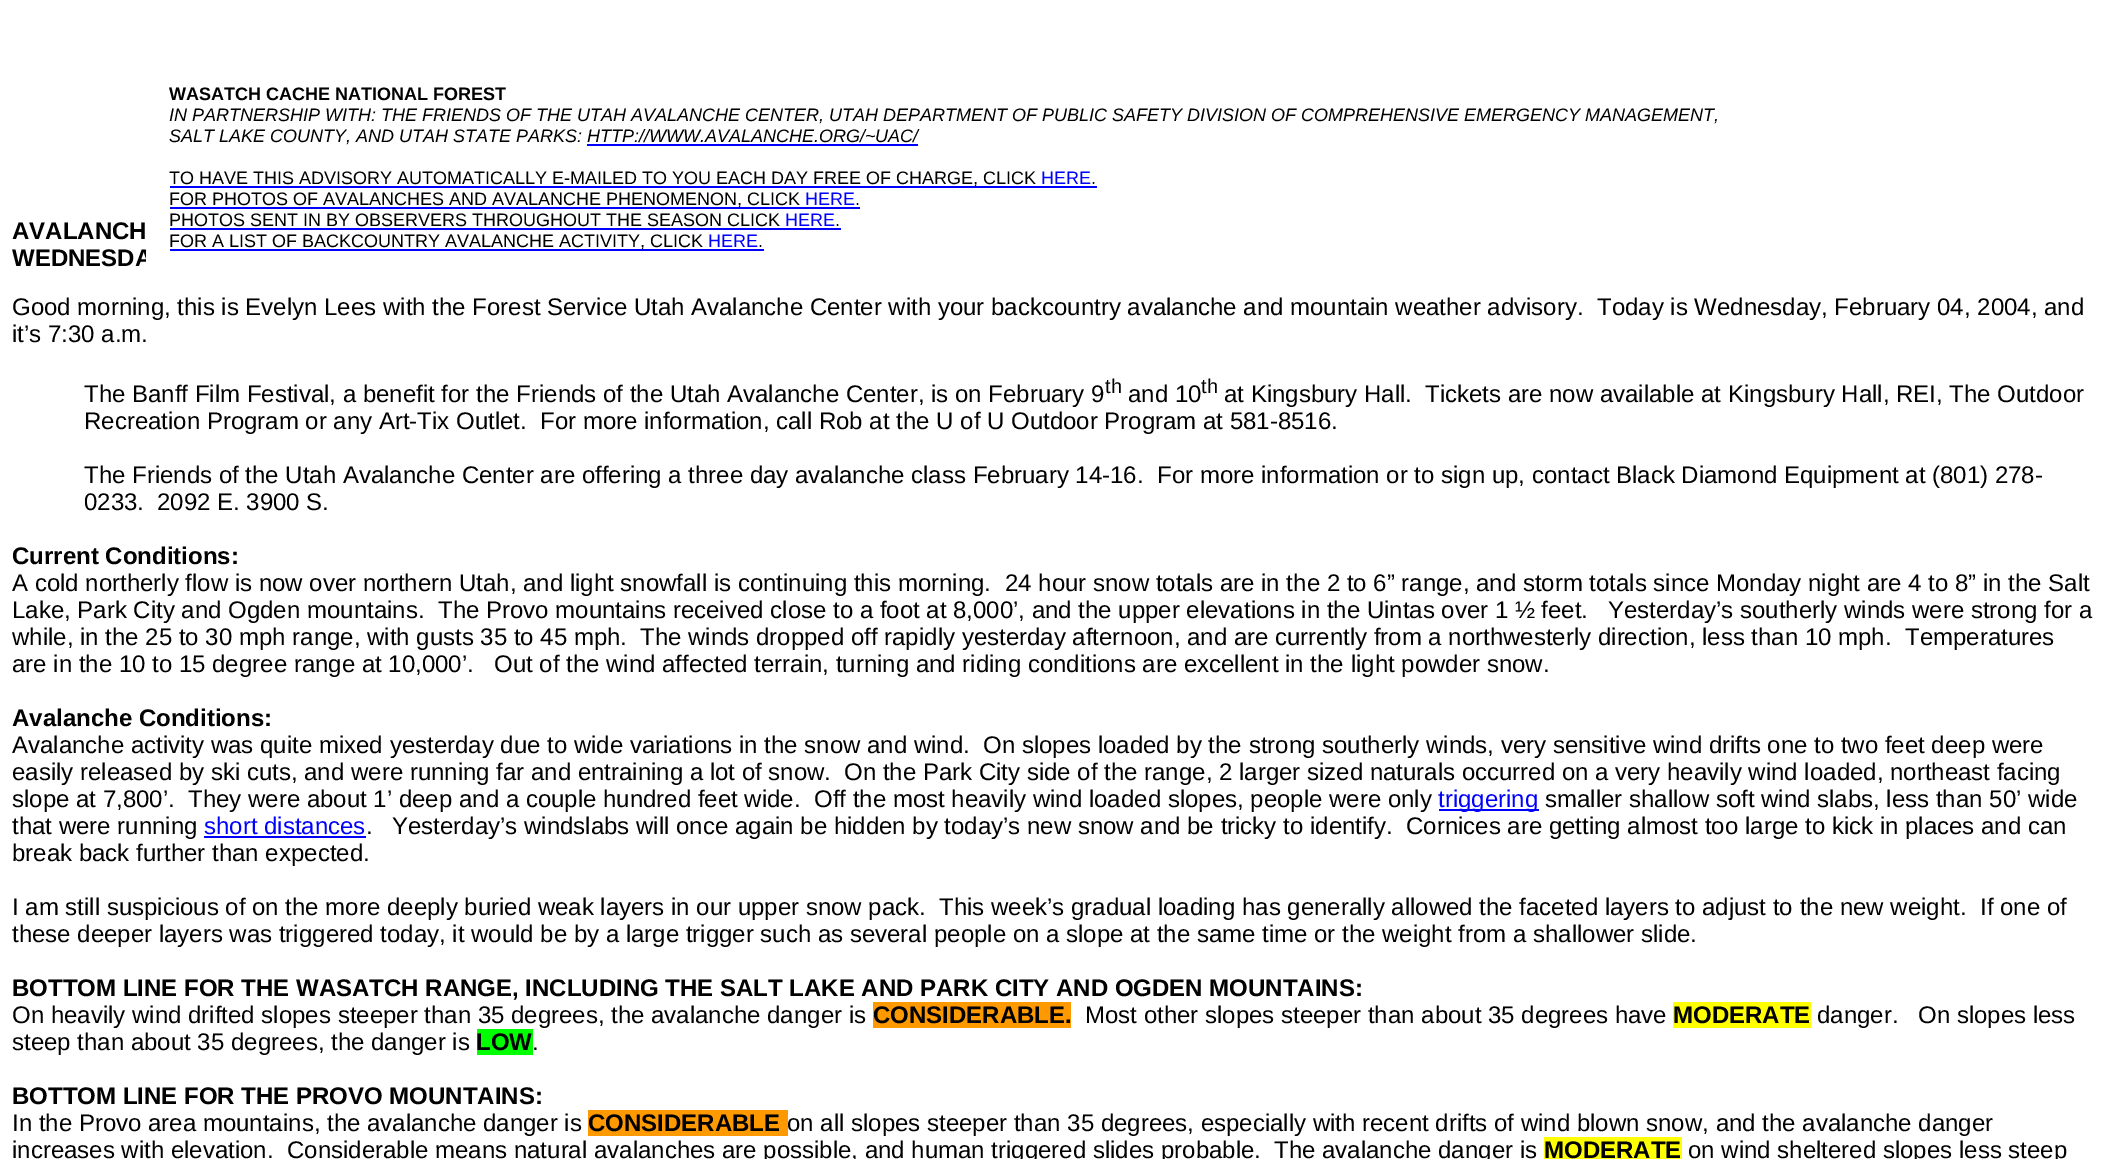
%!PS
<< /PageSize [2105 1159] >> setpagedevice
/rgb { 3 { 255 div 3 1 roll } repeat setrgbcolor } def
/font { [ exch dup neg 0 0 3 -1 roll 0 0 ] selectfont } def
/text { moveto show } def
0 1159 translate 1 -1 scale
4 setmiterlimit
255 255 255 rgb
0 0 2105 1159 rectfill
0 0 255 rgb
170 186 927 2 rectfill
170 207 690 2 rectfill
170 228 671 2 rectfill
170 249 594 2 rectfill
1439 809 100 2 rectfill
204 836 162 2 rectfill
255 153 0 rgb
873 1002 198 26 rectfill
255 255 0 rgb
1673 1002 138 26 rectfill
0 255 0 rgb
477 1029 56 26 rectfill
255 153 0 rgb
588 1110 200 26 rectfill
255 255 0 rgb
1544 1137 138 22 rectfill
/LiberationSans-Bold 24 font
0 0 0 rgb
(AVALANCH) 12 239 text
/LiberationSans-Bold 18 font
(WASATCH CACHE NATIONAL FOREST) 169 100 text
/LiberationSans-Italic 18 font
(IN PARTNERSHIP WITH: THE FRIENDS OF THE UTAH AVALANCHE CENTER, UTAH DEPARTMENT OF PUBLIC SAFETY DIVISION OF COMPREHENSIVE EMERGENCY MANAGEMENT,) 169 121 text
(SALT LAKE COUNTY, AND UTAH STATE PARKS: HTTP://WWW.AVALANCHE.ORG/~UAC/) 169 142 text
0 0 255 rgb
587 144 331 2 rectfill
/LiberationSans-Regular 18 font
0 0 0 rgb
(TO HAVE THIS ADVISORY AUTOMATICALLY E-MAILED TO YOU EACH DAY FREE OF CHARGE, CLICK) 169 184 text
0 0 255 rgb
(HERE) 1041 184 text
0 0 0 rgb
(.) 1091 184 text
(FOR PHOTOS OF AVALANCHES AND AVALANCHE PHENOMENON, CLICK) 169 205 text
0 0 255 rgb
(HERE) 805 205 text
0 0 0 rgb
(.) 855 205 text
(PHOTOS SENT IN BY OBSERVERS THROUGHOUT THE SEASON CLICK) 169 226 text
0 0 255 rgb
(HERE) 785 226 text
0 0 0 rgb
(.) 835 226 text
(FOR A LIST OF BACKCOUNTRY AVALANCHE ACTIVITY, CLICK) 169 247 text
0 0 255 rgb
(HERE) 708 247 text
0 0 0 rgb
(.) 758 247 text
/LiberationSans-Bold 24 font
(WEDNESDA) 12 266 text
255 255 255 rgb
146 251 6 15 rectfill
/LiberationSans-Regular 24 font
0 0 0 rgb
(Good morning, this is Evelyn Lees with the Forest Service Utah Avalanche Center with your backcountry avalanche and mountain weather advisory.) 12 315 text
(Today is Wednesday, February 04, 2004, and) 1597 315 text
(it’s 7:30 a.m.) 12 342 text
(The Banff Film Festival, a benefit for the Friends of the Utah Avalanche Center, is on February 9) 84 402 text
/LiberationSans-Regular 20 font
(th) 1105 393 text
/LiberationSans-Regular 24 font
(and 10) 1128 402 text
/LiberationSans-Regular 20 font
(th) 1201 393 text
/LiberationSans-Regular 24 font
(at Kingsbury Hall.) 1224 402 text
(Tickets are now available at Kingsbury Hall, REI, The Outdoor) 1425 402 text
(Recreation Program or any Art-Tix Outlet.) 84 429 text
(For more information, call Rob at the U of U Outdoor Program at 581-8516.) 540 429 text
(The Friends of the Utah Avalanche Center are offering a three day avalanche class February 14-16.) 84 483 text
(For more information or to sign up, contact Black Diamond Equipment at \(801\) 278-) 1157 483 text
(0233.) 84 510 text
(2092 E. 3900 S.) 157 510 text
/LiberationSans-Bold 24 font
(Current Conditions:) 12 564 text
/LiberationSans-Regular 24 font
(A cold northerly flow is now over northern Utah, and light snowfall is continuing this morning.) 12 591 text
(24 hour snow totals are in the 2 to 6” range, and storm totals since Monday night are 4 to 8” in the Salt) 1005 591 text
(Lake, Park City and Ogden mountains.) 12 618 text
(The Provo mountains received close to a foot at 8,000’, and the upper elevations in the Uintas over 1 ½ feet.) 438 618 text
(Yesterday’s southerly winds were strong for a) 1608 618 text
(while, in the 25 to 30 mph range, with gusts 35 to 45 mph.) 12 645 text
(The winds dropped off rapidly yesterday afternoon, and are currently from a northwesterly direction, less than 10 mph.) 640 645 text
(Temperatures) 1905 645 text
(are in the 10 to 15 degree range at 10,000’.) 12 672 text
(Out of the wind affected terrain, turning and riding conditions are excellent in the light powder snow.) 494 672 text
/LiberationSans-Bold 24 font
(Avalanche Conditions:) 12 726 text
/LiberationSans-Regular 24 font
(Avalanche activity was quite mixed yesterday due to wide variations in the snow and wind.) 12 753 text
(On slopes loaded by the strong southerly winds, very sensitive wind drifts one to two feet deep were) 983 753 text
(easily released by ski cuts, and were running far and entraining a lot of snow.) 12 780 text
(On the Park City side of the range, 2 larger sized naturals occurred on a very heavily wind loaded, northeast facing) 844 780 text
(slope at 7,800’.) 12 807 text
(They were about 1’ deep and a couple hundred feet wide.) 188 807 text
(Off the most heavily wind loaded slopes, people were only) 814 807 text
0 0 255 rgb
(triggering) 1438 807 text
0 0 0 rgb
(smaller shallow soft wind slabs, less than 50’ wide) 1545 807 text
(that were running) 12 834 text
0 0 255 rgb
(short distances) 204 834 text
0 0 0 rgb
(.) 366 834 text
(Yesterday’s windslabs will once again be hidden by today’s new snow and be tricky to identify.) 392 834 text
(Cornices are getting almost too large to kick in places and can) 1406 834 text
(break back further than expected.) 12 861 text
(I am still suspicious of on the more deeply buried weak layers in our upper snow pack.) 12 915 text
(This week’s gradual loading has generally allowed the faceted layers to adjust to the new weight.) 939 915 text
(If one of) 1980 915 text
(these deeper layers was triggered today, it would be by a large trigger such as several people on a slope at the same time or the weight from a shallower slide.) 12 942 text
/LiberationSans-Bold 24 font
(BOTTOM LINE FOR THE WASATCH RANGE, INCLUDING THE SALT LAKE AND PARK CITY AND OGDEN MOUNTAINS:) 12 996 text
/LiberationSans-Regular 24 font
(On heavily wind drifted slopes steeper than 35 degrees, the avalanche danger is) 12 1023 text
/LiberationSans-Bold 24 font
(CONSIDERABLE.) 873 1023 text
/LiberationSans-Regular 24 font
(Most other slopes steeper than about 35 degrees have) 1085 1023 text
/LiberationSans-Bold 24 font
(MODERATE) 1673 1023 text
/LiberationSans-Regular 24 font
(danger.) 1817 1023 text
(On slopes less) 1918 1023 text
(steep than about 35 degrees, the danger is) 12 1050 text
/LiberationSans-Bold 24 font
(LOW) 476 1050 text
/LiberationSans-Regular 24 font
(.) 532 1050 text
/LiberationSans-Bold 24 font
(BOTTOM LINE FOR THE PROVO MOUNTAINS:) 12 1104 text
/LiberationSans-Regular 24 font
(In the Provo area mountains, the avalanche danger is) 12 1131 text
/LiberationSans-Bold 24 font
(CONSIDERABLE) 588 1131 text
/LiberationSans-Regular 24 font
(on all slopes steeper than 35 degrees, especially with recent drifts of wind blown snow, and the avalanche danger) 787 1131 text
(increases with elevation.) 12 1158 text
(Considerable means natural avalanches are possible, and human triggered slides probable.) 287 1158 text
(The avalanche danger is) 1274 1158 text
/LiberationSans-Bold 24 font
(MODERATE) 1544 1158 text
/LiberationSans-Regular 24 font
(on wind sheltered slopes less steep) 1688 1158 text
showpage
